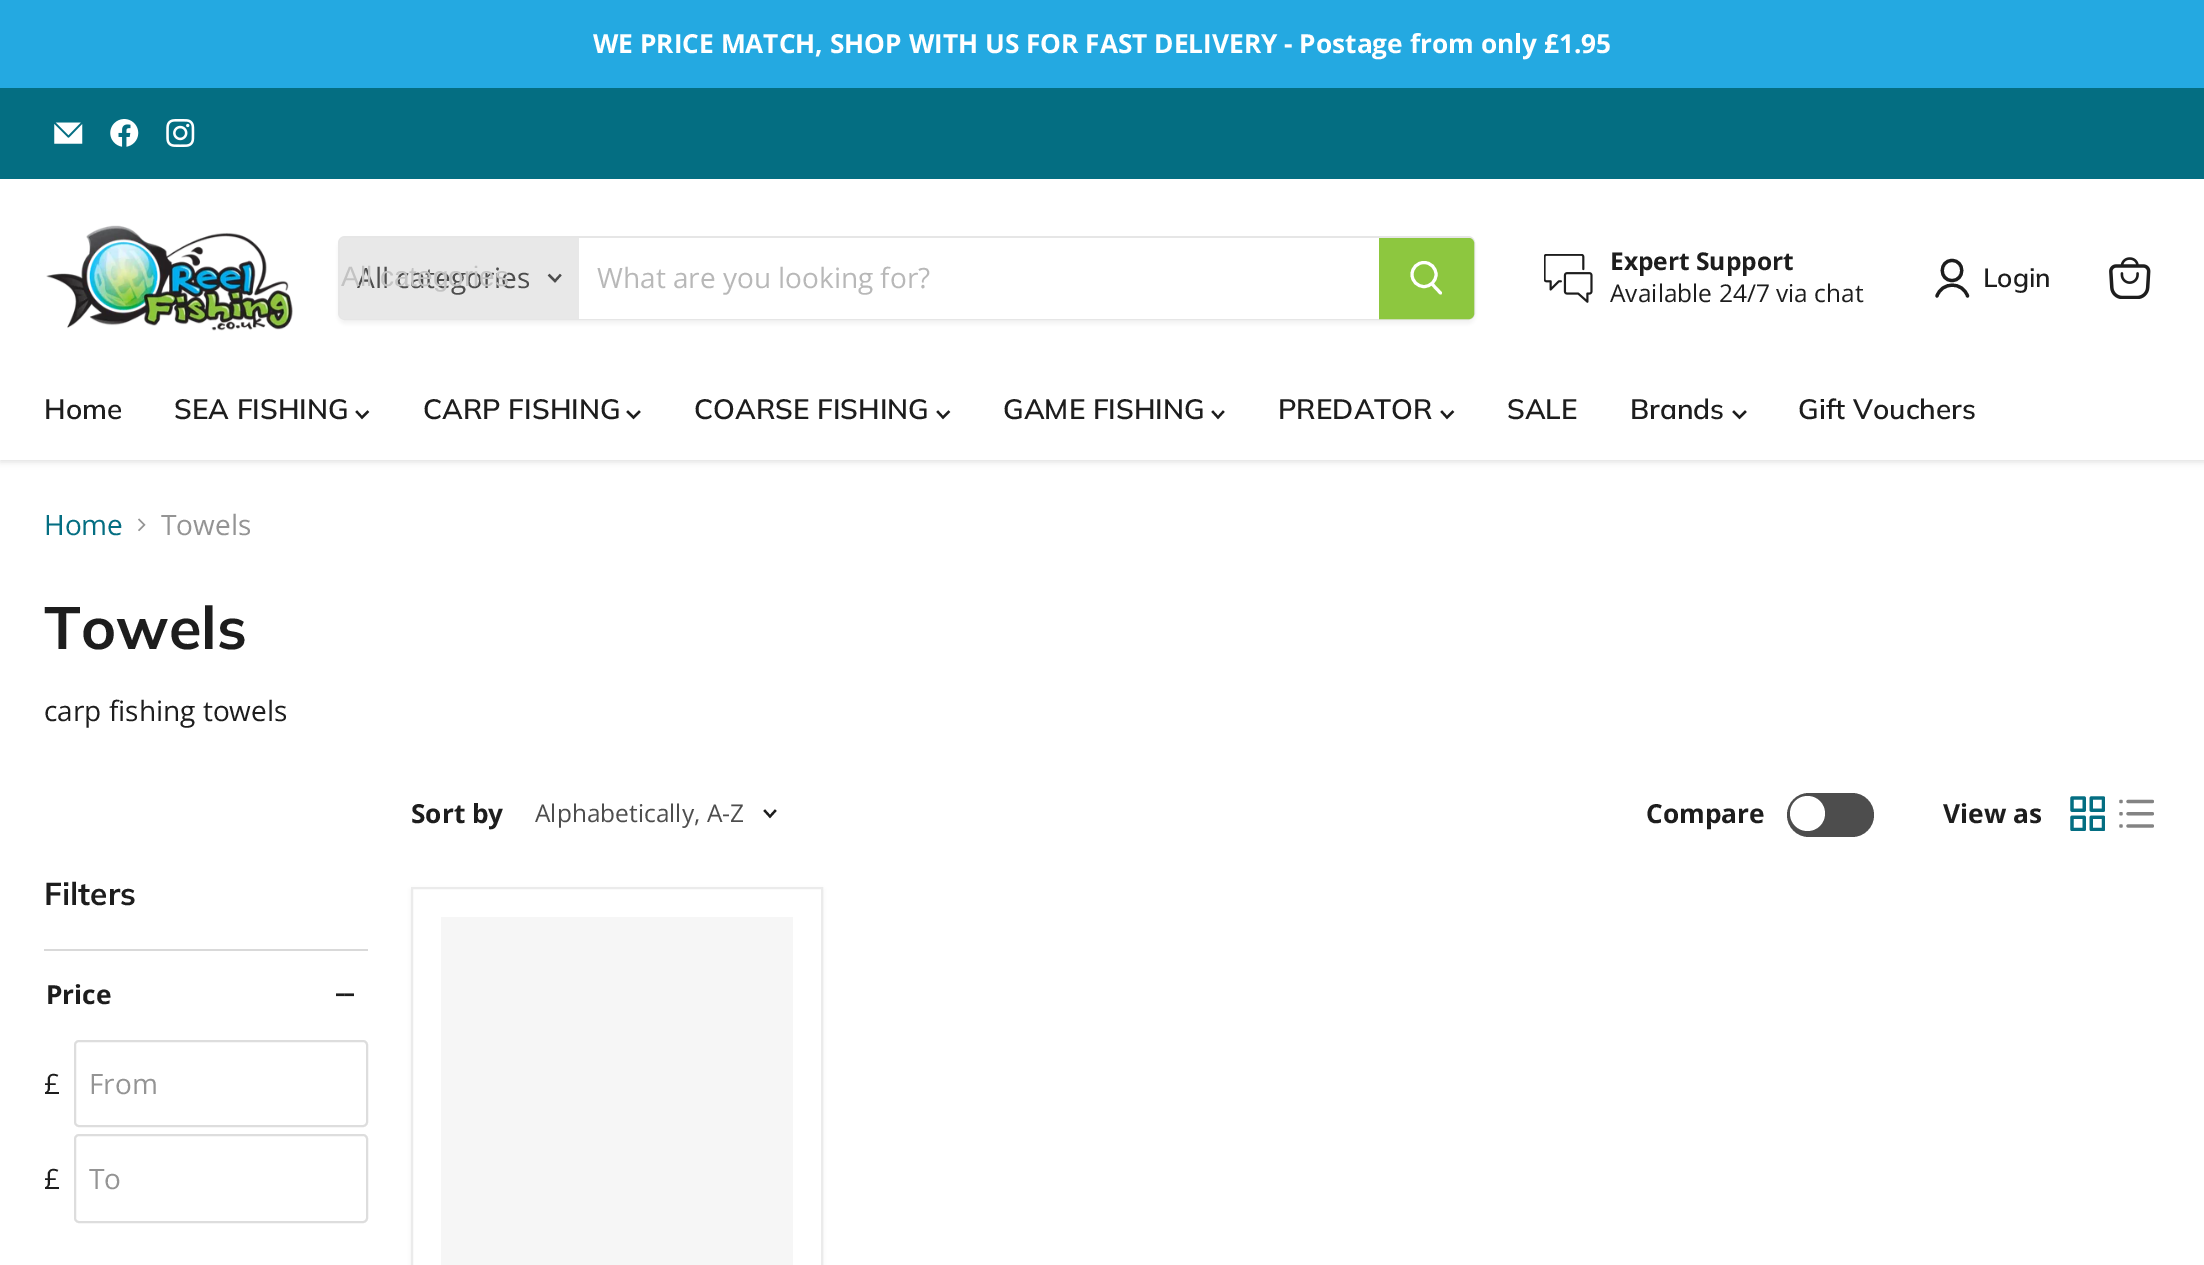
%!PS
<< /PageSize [2204 1265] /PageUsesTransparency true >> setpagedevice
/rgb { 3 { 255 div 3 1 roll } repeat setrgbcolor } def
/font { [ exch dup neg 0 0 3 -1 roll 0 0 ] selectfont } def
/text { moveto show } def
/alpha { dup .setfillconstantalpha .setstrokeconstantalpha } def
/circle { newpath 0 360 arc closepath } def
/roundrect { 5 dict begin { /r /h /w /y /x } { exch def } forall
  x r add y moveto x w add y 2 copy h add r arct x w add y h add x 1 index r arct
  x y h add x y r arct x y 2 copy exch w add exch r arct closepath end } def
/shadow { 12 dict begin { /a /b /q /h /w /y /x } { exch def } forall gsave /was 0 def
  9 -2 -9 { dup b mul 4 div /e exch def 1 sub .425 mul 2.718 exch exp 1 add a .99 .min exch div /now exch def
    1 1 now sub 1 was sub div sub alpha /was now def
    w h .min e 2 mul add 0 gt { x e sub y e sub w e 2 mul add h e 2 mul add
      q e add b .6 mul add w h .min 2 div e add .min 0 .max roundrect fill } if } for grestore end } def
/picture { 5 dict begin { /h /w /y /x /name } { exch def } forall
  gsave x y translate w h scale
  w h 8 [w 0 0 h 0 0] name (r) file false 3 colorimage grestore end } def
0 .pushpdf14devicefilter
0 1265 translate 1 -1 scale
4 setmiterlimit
255 255 255 rgb
0 0 2204 1265 rectfill
36 169 225 rgb
0 0 2204 88 rectfill
128 128 128 rgb
0 182 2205 280 0 3.5 0.25 shadow
4 110 130 rgb
0 88 2204 91 rectfill
(img_01.rgb) 54 122 29 22 picture
(img_02.rgb) 110 119 29 28 picture
(img_03.rgb) 166 119 29 28 picture
255 255 255 rgb
0 179 2204 281 rectfill
(img_04.rgb) 46 225 247 106 picture
128 128 128 rgb
338 240 1137 84 7 2.5 0.11 shadow
230 230 230 rgb
2 setlinewidth
339 237 1135 82 6 roundrect stroke
232 232 232 rgb
345 238 moveto 234 0 rlineto 0 81 rlineto -234 0 rlineto -3 0 -5 -2 -5 -5 rcurveto 0 -71 rlineto 0 -3 2 -5 5 -5 rcurveto closepath fill
77 77 77 rgb
2.2 setlinewidth
2 setlinecap
555 281 moveto 5 -5.5 rlineto 555 281 moveto -5.5 -5.5 rlineto stroke
255 255 255 rgb
579 238 800 81 rectfill
141 199 63 rgb
1380 239 moveto 89 0 rlineto 2 0 4 2 4 4 rcurveto 0 71 rlineto 0 2 -2 4 -4 4 rcurveto -89 0 rlineto closepath gsave fill grestore
2 setlinewidth
0 setlinecap
stroke
255 255 255 rgb
3 setlinewidth
1 setlinecap
1440.5 293 moveto -8 -8.5 rlineto stroke
0 setlinecap
1424 274.5 12 circle stroke
(img_05.rgb) 1544 254 49 49 picture
29 29 29 rgb
3.2 setlinewidth
1 setlinecap
1 setlinejoin
1952 280.5 moveto 13 0 13 -20 0 -20 rcurveto -13 0 -13 20 0 20 rcurveto closepath 1967.5 296 moveto -5 -14.5 -25.5 -14.5 -30.5 0 rcurveto stroke
(img_06.rgb) 2109 257 42 42 picture
2.2 setlinewidth
2 setlinecap
0 setlinejoin
362 417.5 moveto 5.5 -5.5 rlineto 362 417.5 moveto -5 -5.5 rlineto stroke
633.5 417.5 moveto 5.5 -5.5 rlineto 633.5 417.5 moveto -5.5 -5.5 rlineto stroke
943 417.5 moveto 5.5 -5.5 rlineto 943 417.5 moveto -5 -5.5 rlineto stroke
1218 417.5 moveto 5 -5.5 rlineto 1218 417.5 moveto -5 -5.5 rlineto stroke
1447 417.5 moveto 5.5 -5.5 rlineto 1447 417.5 moveto -5 -5.5 rlineto stroke
1739.5 417.5 moveto 5.5 -5.5 rlineto 1739.5 417.5 moveto -5.5 -5.5 rlineto stroke
(img_07.rgb) 138 518 8 14 picture
770 816.5 moveto 5 -5.5 rlineto 770 816.5 moveto -5 -5.5 rlineto stroke
77 77 77 rgb
1787 793 87 44 22 roundrect fill
255 255 255 rgb
1807.5 813.5 17.5 circle fill
(img_08.rgb) 2070 796 35 35 picture
(img_09.rgb) 2119 799 35 29 picture
128 128 128 rgb
411 889 412 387 0 3.5 0.11 shadow
255 255 255 rgb
412 888 moveto 410 0 rlineto 0 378 rlineto -410 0 rlineto closepath gsave fill grestore
235 235 235 rgb
2 setlinewidth
0 setlinecap
stroke
246 246 246 rgb
441 917 352 348 rectfill
217 217 217 rgb
44 949 324 2 rectfill
(img_10.rgb) 336 993 18 4 picture
221 221 221 rgb
75 1041 292 85 4 roundrect stroke
75 1135 292 87 4 roundrect stroke
/OpenSans-Bold 26.25 font
255 255 255 rgb
(WE PRICE MATCH, SHOP WITH US FOR FAST DELIVERY - Postage from only £1.95) 593 53 text
/OpenSans-Regular 28 font
77 77 77 rgb
(All categories) 357 288 text
/LiberationSans-Regular 28 font
195 195 195 rgb
(All categories) 341 286 text
/OpenSans-Regular 28 font
184 184 184 rgb
(What are you looking for?) 597 288 text
/OpenSans-Bold 24.5 font
29 29 29 rgb
(Expert Support) 1610 270 text
/OpenSans-Regular 24.5 font
(Available 24/7 via chat) 1610 302 text
/Muli-SemiBold 26.25 font
(Login) 1983 287 text
/Muli-SemiBold 28 font
(Home) 44 419 text
(SEA FISHING) 174 419 text
(CARP FISHING) 423 419 text
(COARSE FISHING) 694 419 text
(GAME FISHING) 1003 419 text
(PREDATOR) 1278 419 text
(SALE) 1507 419 text
(Brands) 1630 419 text
(Gift Vouchers) 1798 419 text
/OpenSans-Regular 28 font
4 110 130 rgb
(Home) 44 535 text
148 148 148 rgb
(Towels) 161 535 text
/Muli-Bold 59.5 font
29 29 29 rgb
(Towels) 44 649 text
/OpenSans-Regular 28 font
(carp fishing towels) 44 721 text
/OpenSans-Bold 26.25 font
(Sort by) 411 823 text
/OpenSans-Regular 24.5 font
77 77 77 rgb
(Alphabetically, A-Z) 535 822 text
/OpenSans-Bold 26.25 font
29 29 29 rgb
(Compare) 1646 823 text
(View as) 1943 823 text
/Muli-Bold 31.5 font
(Filters) 44 905 text
/OpenSans-Bold 26.25 font
(Price) 46 1004 text
/OpenSans-Regular 28 font
(£) 44 1094 text
148 148 148 rgb
(From) 89 1094 text
29 29 29 rgb
(£) 44 1189 text
148 148 148 rgb
(To) 89 1189 text
.poppdf14devicefilter showpage
